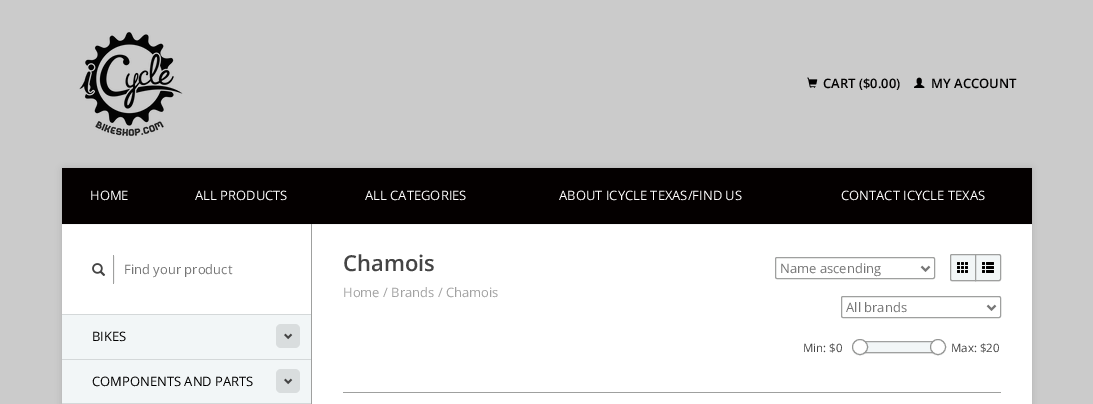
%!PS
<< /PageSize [1093 404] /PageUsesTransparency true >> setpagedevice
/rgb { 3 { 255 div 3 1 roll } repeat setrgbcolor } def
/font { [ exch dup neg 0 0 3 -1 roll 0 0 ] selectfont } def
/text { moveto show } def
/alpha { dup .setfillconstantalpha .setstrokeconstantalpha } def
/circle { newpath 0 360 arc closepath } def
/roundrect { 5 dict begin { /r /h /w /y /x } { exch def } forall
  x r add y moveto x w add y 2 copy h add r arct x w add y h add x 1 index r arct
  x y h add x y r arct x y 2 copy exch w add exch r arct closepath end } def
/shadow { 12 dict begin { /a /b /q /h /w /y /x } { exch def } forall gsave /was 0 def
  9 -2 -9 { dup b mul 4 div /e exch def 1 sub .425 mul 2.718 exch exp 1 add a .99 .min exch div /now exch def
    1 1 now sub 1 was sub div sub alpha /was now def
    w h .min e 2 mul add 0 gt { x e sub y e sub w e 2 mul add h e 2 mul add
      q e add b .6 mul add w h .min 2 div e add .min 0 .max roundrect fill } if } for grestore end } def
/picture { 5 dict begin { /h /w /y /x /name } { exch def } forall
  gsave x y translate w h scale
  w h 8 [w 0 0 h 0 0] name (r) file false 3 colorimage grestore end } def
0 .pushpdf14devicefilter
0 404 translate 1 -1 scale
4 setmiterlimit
203 203 203 rgb
0 0 1093 404 rectfill
(img_01.rgb) 79 32 104 104 picture
(img_02.rgb) 807 77 11 11 picture
(img_03.rgb) 914 77 11 11 picture
0 0 0 rgb
62 168 970 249 2 3.5 0.13 shadow
255 255 255 rgb
62 225 970 179 rectfill
245 245 245 rgb
62 224 970 1 rectfill
3 0 0 rgb
62 223 970 1 rectfill
4 0 0 rgb
62 168 970 55 rectfill
159 160 159 rgb
311 224 1 180 rectfill
gsave
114 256 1 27 rectclip
0 0 0 rgb
87 256 28 27 0 0.5 0.06 shadow
grestore
113 255 1 29 rectfill
(img_04.rgb) 92 263 14 13 picture
242 246 247 rgb
62 315 249 44 rectfill
212 216 217 rgb
62 314 249 1 rectfill
217 221 222 rgb
276 324 24 24 5 roundrect fill
(img_05.rgb) 284 333 9 7 picture
242 246 247 rgb
62 360 249 43 rectfill
212 216 217 rgb
62 359 249 1 rectfill
217 221 222 rgb
276 369 24 24 5 roundrect fill
(img_05.rgb) 284 378 9 7 picture
212 216 217 rgb
62 403 249 1 rectfill
159 160 159 rgb
775.5 257.5 159 21 1.5 roundrect stroke
119 119 119 rgb
2 setlinewidth
921.5 266.5 moveto 4 4 rlineto 4 -4 rlineto stroke
245 245 245 rgb
950 279 moveto 0 1 rlineto 0 1 1 2 2 2 rcurveto 24 0 rlineto 0 -1 rlineto -24 0 rlineto -1 0 -2 -1 -2 -2 rcurveto closepath fill
242 246 247 rgb
952 254.5 moveto 23.5 0 rlineto 0 26 rlineto -23.5 0 rlineto -1 0 -1.5 -0.5 -1.5 -1.5 rcurveto 0 -23 rlineto 0 -1 0.5 -1.5 1.5 -1.5 rcurveto closepath gsave fill grestore
159 160 159 rgb
1 setlinewidth
stroke
(img_06.rgb) 957 262 11 11 picture
0.04 alpha
0 0 0 rgb
975 281 moveto 0 1 rlineto 24 0 rlineto 1 0 2 -1 2 -2 rcurveto 0 -1 rlineto 0 1 -1 2 -2 2 rcurveto closepath fill
1 alpha
242 246 247 rgb
975.5 254.5 moveto 23.5 0 rlineto 1 0 1.5 0.5 1.5 1.5 rcurveto 0 23 rlineto 0 1 -0.5 1.5 -1.5 1.5 rcurveto -23.5 0 rlineto closepath gsave fill grestore
159 160 159 rgb
stroke
(img_07.rgb) 982 262 12 11 picture
841.5 296.5 159 21 1.5 roundrect stroke
119 119 119 rgb
2 setlinewidth
987.5 305.5 moveto 4 4 rlineto 4 -4 rlineto stroke
245 245 245 rgb
861 353 78 1 rectfill
242 246 247 rgb
866 342 66 10 rectfill
159 160 159 rgb
1 setlinewidth
861.5 341.5 77 11 rectstroke
0.04 alpha
0 0 0 rgb
852 347.5 moveto -0.5 11 16.5 11 16 0 rcurveto -0.5 10 -15.5 10 -16 0 rcurveto closepath fill
1 alpha
255 255 255 rgb
860 347 7.5 circle gsave fill grestore
148 149 148 rgb
stroke
0.04 alpha
0 0 0 rgb
930 347.5 moveto -0.5 11 16.5 11 16 0 rcurveto -0.5 10 -15.5 10 -16 0 rcurveto closepath fill
1 alpha
255 255 255 rgb
938 347 7.5 circle gsave fill grestore
148 149 148 rgb
stroke
159 160 159 rgb
343 392 658 1 rectfill
/OpenSans-SemiBold 13 font
1 0 0 rgb
(CART \($0.00\)) 823 88 text
(MY ACCOUNT) 931 88 text
/OpenSans-Regular 13 font
255 255 255 rgb
(HOME) 90 200 text
(ALL PRODUCTS) 195 200 text
(ALL CATEGORIES) 365 200 text
(ABOUT ICYCLE TEXAS/FIND US) 559 200 text
(CONTACT ICYCLE TEXAS) 841 200 text
117 117 117 rgb
(Find your product) 124 274 text
1 0 0 rgb
(BIKES) 92 341 text
(COMPONENTS AND PARTS) 92 386 text
/OpenSans-SemiBold 22 font
68 68 68 rgb
(Chamois) 343 271 text
/OpenSans-Regular 13 font
161 161 161 rgb
(Home / Brands / Chamois) 343 297 text
117 117 117 rgb
(Name ascending) 780 273 text
(All brands) 846 312 text
/OpenSans-Regular 11.5 font
68 68 68 rgb
(Min: $0) 803 352 text
(Max: $20) 951 352 text
.poppdf14devicefilter showpage
